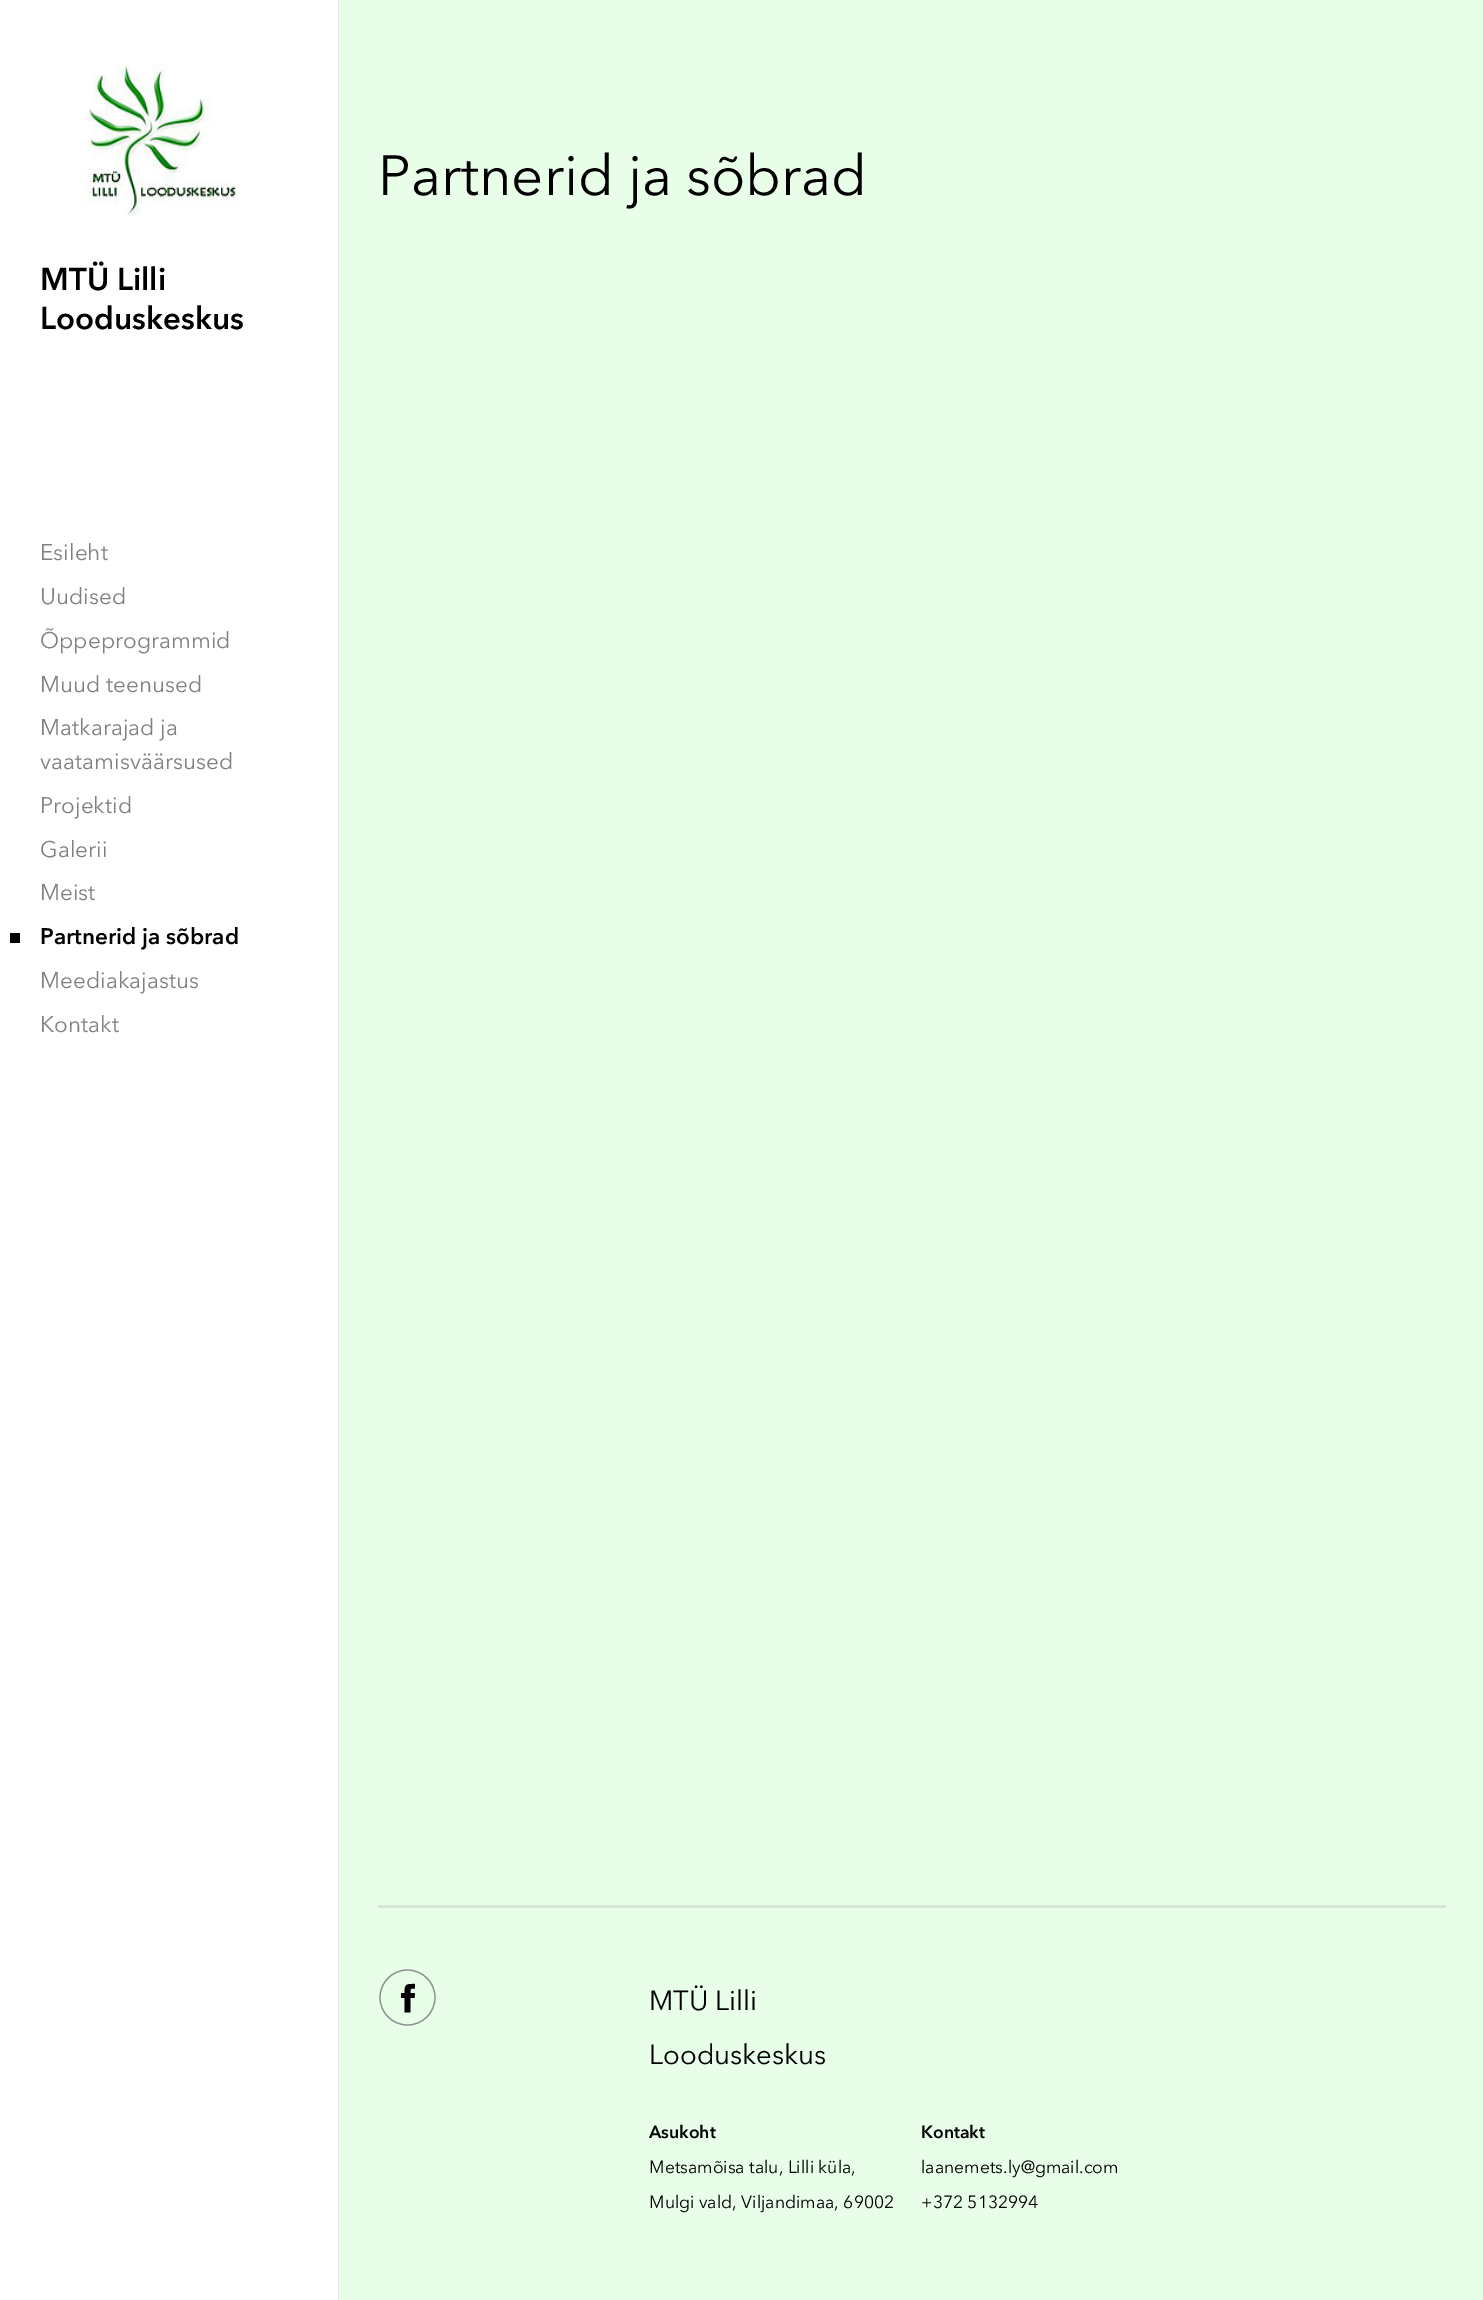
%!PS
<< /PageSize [1483 2300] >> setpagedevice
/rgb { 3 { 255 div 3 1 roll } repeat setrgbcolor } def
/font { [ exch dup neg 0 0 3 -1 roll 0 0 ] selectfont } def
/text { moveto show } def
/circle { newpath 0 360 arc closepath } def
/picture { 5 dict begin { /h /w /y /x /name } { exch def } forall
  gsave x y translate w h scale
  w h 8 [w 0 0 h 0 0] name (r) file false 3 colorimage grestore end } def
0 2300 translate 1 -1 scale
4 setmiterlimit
233 254 233 rgb
0 0 1483 2300 rectfill
229 230 230 rgb
338 0 1 2300 rectfill
255 255 255 rgb
0 0 338 2300 rectfill
(img_01.rgb) 82 63 154 153 picture
0 0 0 rgb
10 933 10 10 rectfill
215 232 215 rgb
378 1905 1068 3 rectfill
141 144 145 rgb
1.2 setlinewidth
407.5 1997.5 27.5 circle stroke
0 0 0 rgb
410.5 2012.5 moveto -6 0 rlineto 0 -14.5 rlineto -3.5 0 rlineto 0 -5 rlineto 3.5 0 rlineto 0 -9.5 2 -9 10.5 -9 rcurveto 0 4.5 rlineto -5 0 -4.5 0 -4.5 4.5 rcurveto 4.5 0 rlineto -0.5 5 rlineto -4 0 rlineto closepath eofill
/AvenirNext-Regular 56.25 font
(Partnerid ja sõbrad) 378 195 text
/AvenirNext-Bold 31.25 font
(MTÜ Lilli) 40 290 text
(Looduskeskus) 40 329 text
/AvenirNext-Regular 22.5 font
128 128 128 rgb
(Esileht) 40 560 text
(Uudised) 40 604 text
(Õppeprogrammid) 40 648 text
(Muud teenused) 40 692 text
(Matkarajad ja) 40 735 text
(vaatamisväärsused) 40 769 text
(Projektid) 40 813 text
(Galerii) 40 857 text
(Meist) 40 900 text
/AvenirNext-Bold 22.5 font
0 0 0 rgb
(Partnerid ja sõbrad) 40 944 text
/AvenirNext-Regular 22.5 font
128 128 128 rgb
(Meediakajastus) 40 988 text
(Kontakt) 40 1032 text
/AvenirNext-Regular 27.5 font
0 0 0 rgb
(MTÜ Lilli) 649 2010 text
(Looduskeskus) 649 2064 text
/AvenirNext-Bold 17.5 font
(Asukoht) 649 2138 text
/AvenirNext-Regular 17.5 font
(Metsamõisa talu, Lilli küla,) 649 2173 text
(Mulgi vald, Viljandimaa, 69002) 649 2208 text
/AvenirNext-Bold 17.5 font
(Kontakt) 921 2138 text
/AvenirNext-Regular 17.5 font
(laanemets.ly@gmail.com) 921 2173 text
(+372 5132994) 921 2208 text
showpage
